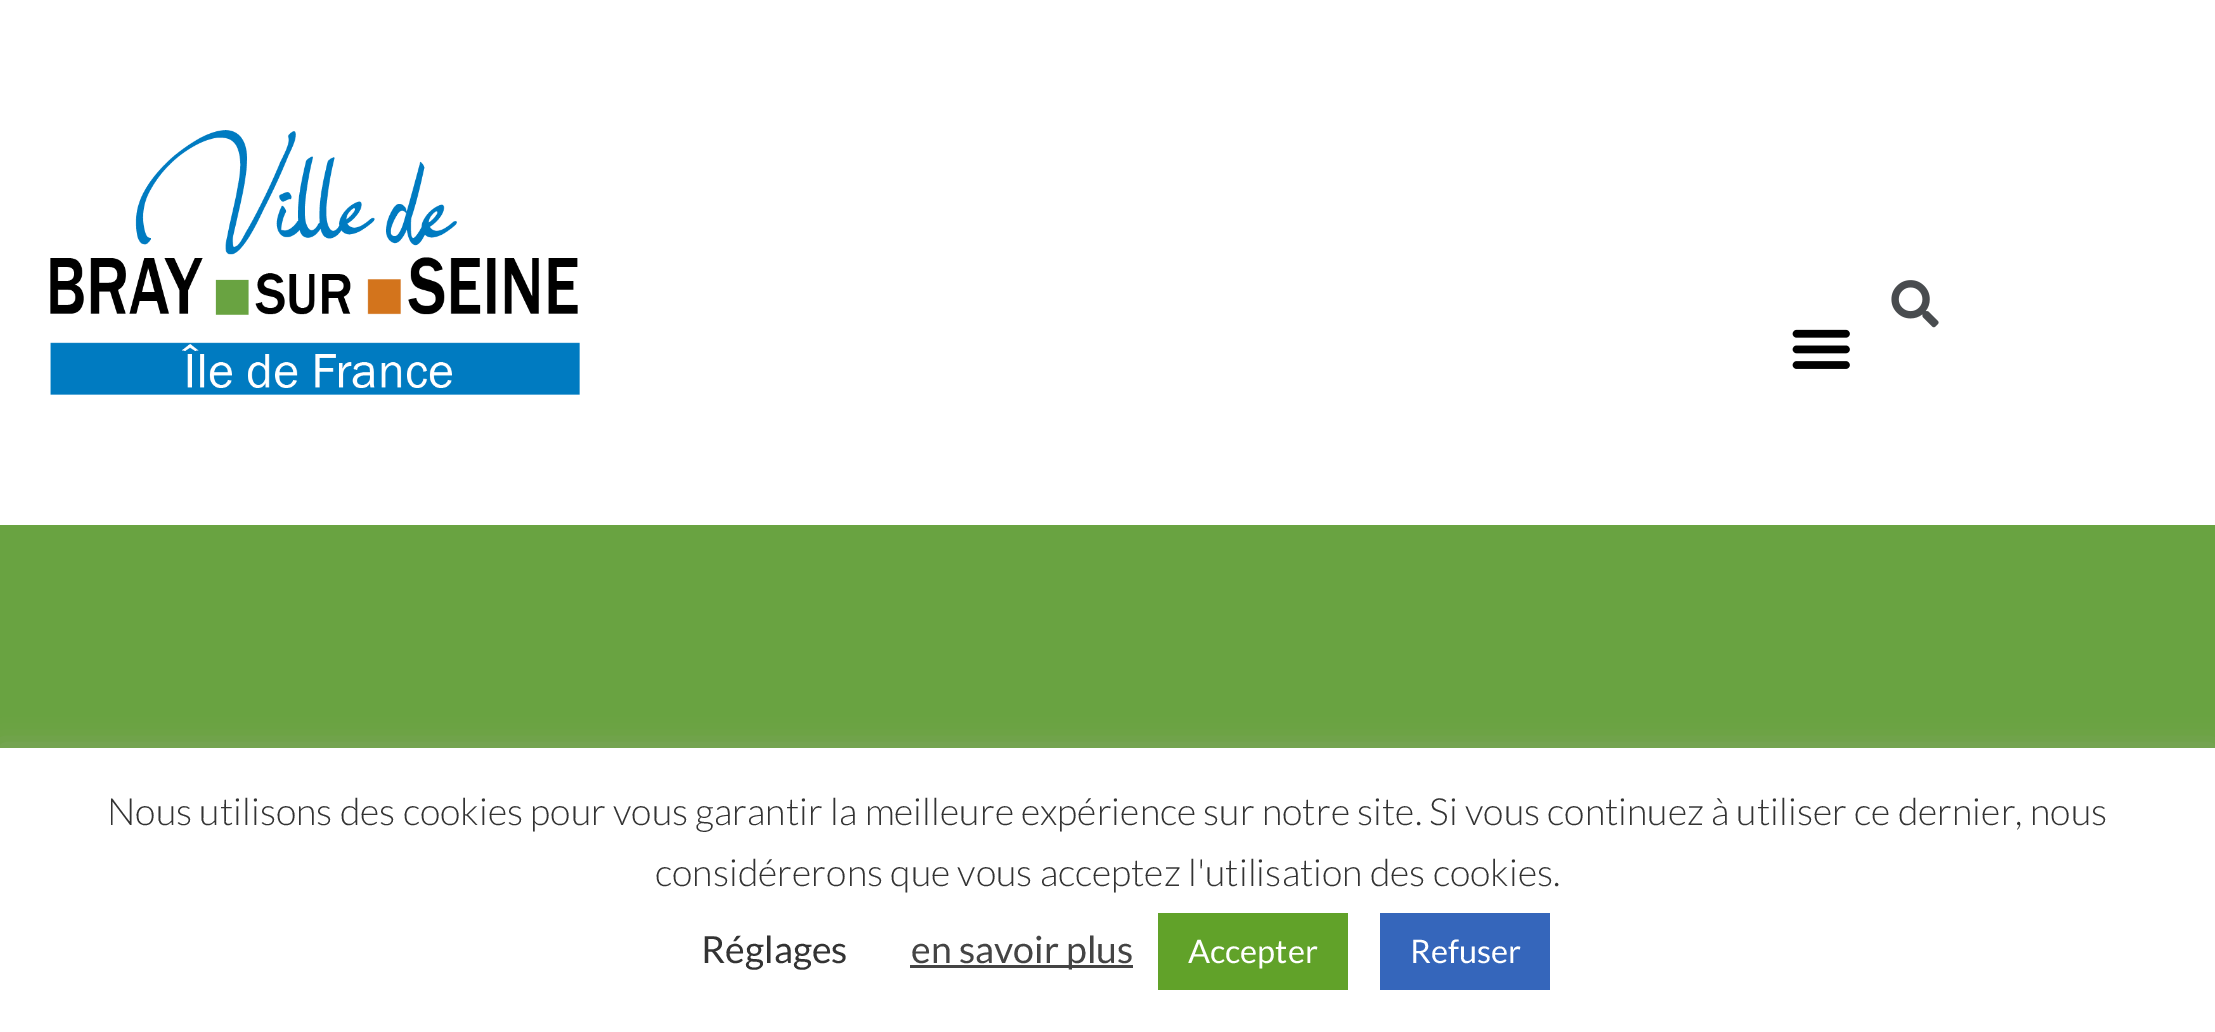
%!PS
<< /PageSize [2215 1032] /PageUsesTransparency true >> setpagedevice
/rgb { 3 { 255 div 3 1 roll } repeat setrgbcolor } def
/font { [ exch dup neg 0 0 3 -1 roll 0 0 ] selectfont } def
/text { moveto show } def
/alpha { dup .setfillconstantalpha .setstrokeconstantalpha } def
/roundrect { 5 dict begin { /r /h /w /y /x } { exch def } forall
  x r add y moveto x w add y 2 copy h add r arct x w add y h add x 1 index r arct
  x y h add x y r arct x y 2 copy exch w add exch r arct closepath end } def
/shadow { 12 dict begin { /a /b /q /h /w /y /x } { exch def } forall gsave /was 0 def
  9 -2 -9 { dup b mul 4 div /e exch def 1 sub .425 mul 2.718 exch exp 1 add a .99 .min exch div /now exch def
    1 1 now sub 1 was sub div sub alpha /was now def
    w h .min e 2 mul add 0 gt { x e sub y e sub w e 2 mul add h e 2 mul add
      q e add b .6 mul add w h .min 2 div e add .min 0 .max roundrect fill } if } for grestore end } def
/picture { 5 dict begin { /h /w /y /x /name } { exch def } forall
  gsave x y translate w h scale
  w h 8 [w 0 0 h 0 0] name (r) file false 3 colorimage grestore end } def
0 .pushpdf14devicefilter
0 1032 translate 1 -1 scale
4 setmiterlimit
255 255 255 rgb
0 0 2215 1032 rectfill
(img_01.rgb) 50 130 530 265 picture
(img_02.rgb) 1891 280 48 48 picture
(img_03.rgb) 1792 329 58 40 picture
105 163 65 rgb
0 525 2215 223 rectfill
172 171 171 rgb
0 745 2215 285 0 12.5 0.3 shadow
255 255 255 rgb
0 748 2215 284 rectfill
68 68 68 rgb
910 965 223 3 rectfill
97 162 41 rgb
1158 913 190 77 rectfill
53 102 187 rgb
1380 913 170 77 rectfill
/Lato-Light 37.5 font
51 51 51 rgb
(Nous utilisons des cookies pour vous garantir la meilleure expérience sur notre site. Si vous continuez à utiliser ce dernier, nous) 107 825 text
(considérerons que vous acceptez l'utilisation des cookies.) 655 886 text
/Lato-Regular 37.5 font
(Réglages) 701 963 text
68 68 68 rgb
(en savoir plus) 911 963 text
/Lato-Regular 32.5 font
255 255 255 rgb
(Accepter) 1188 963 text
(Refuser) 1410 963 text
.poppdf14devicefilter showpage
